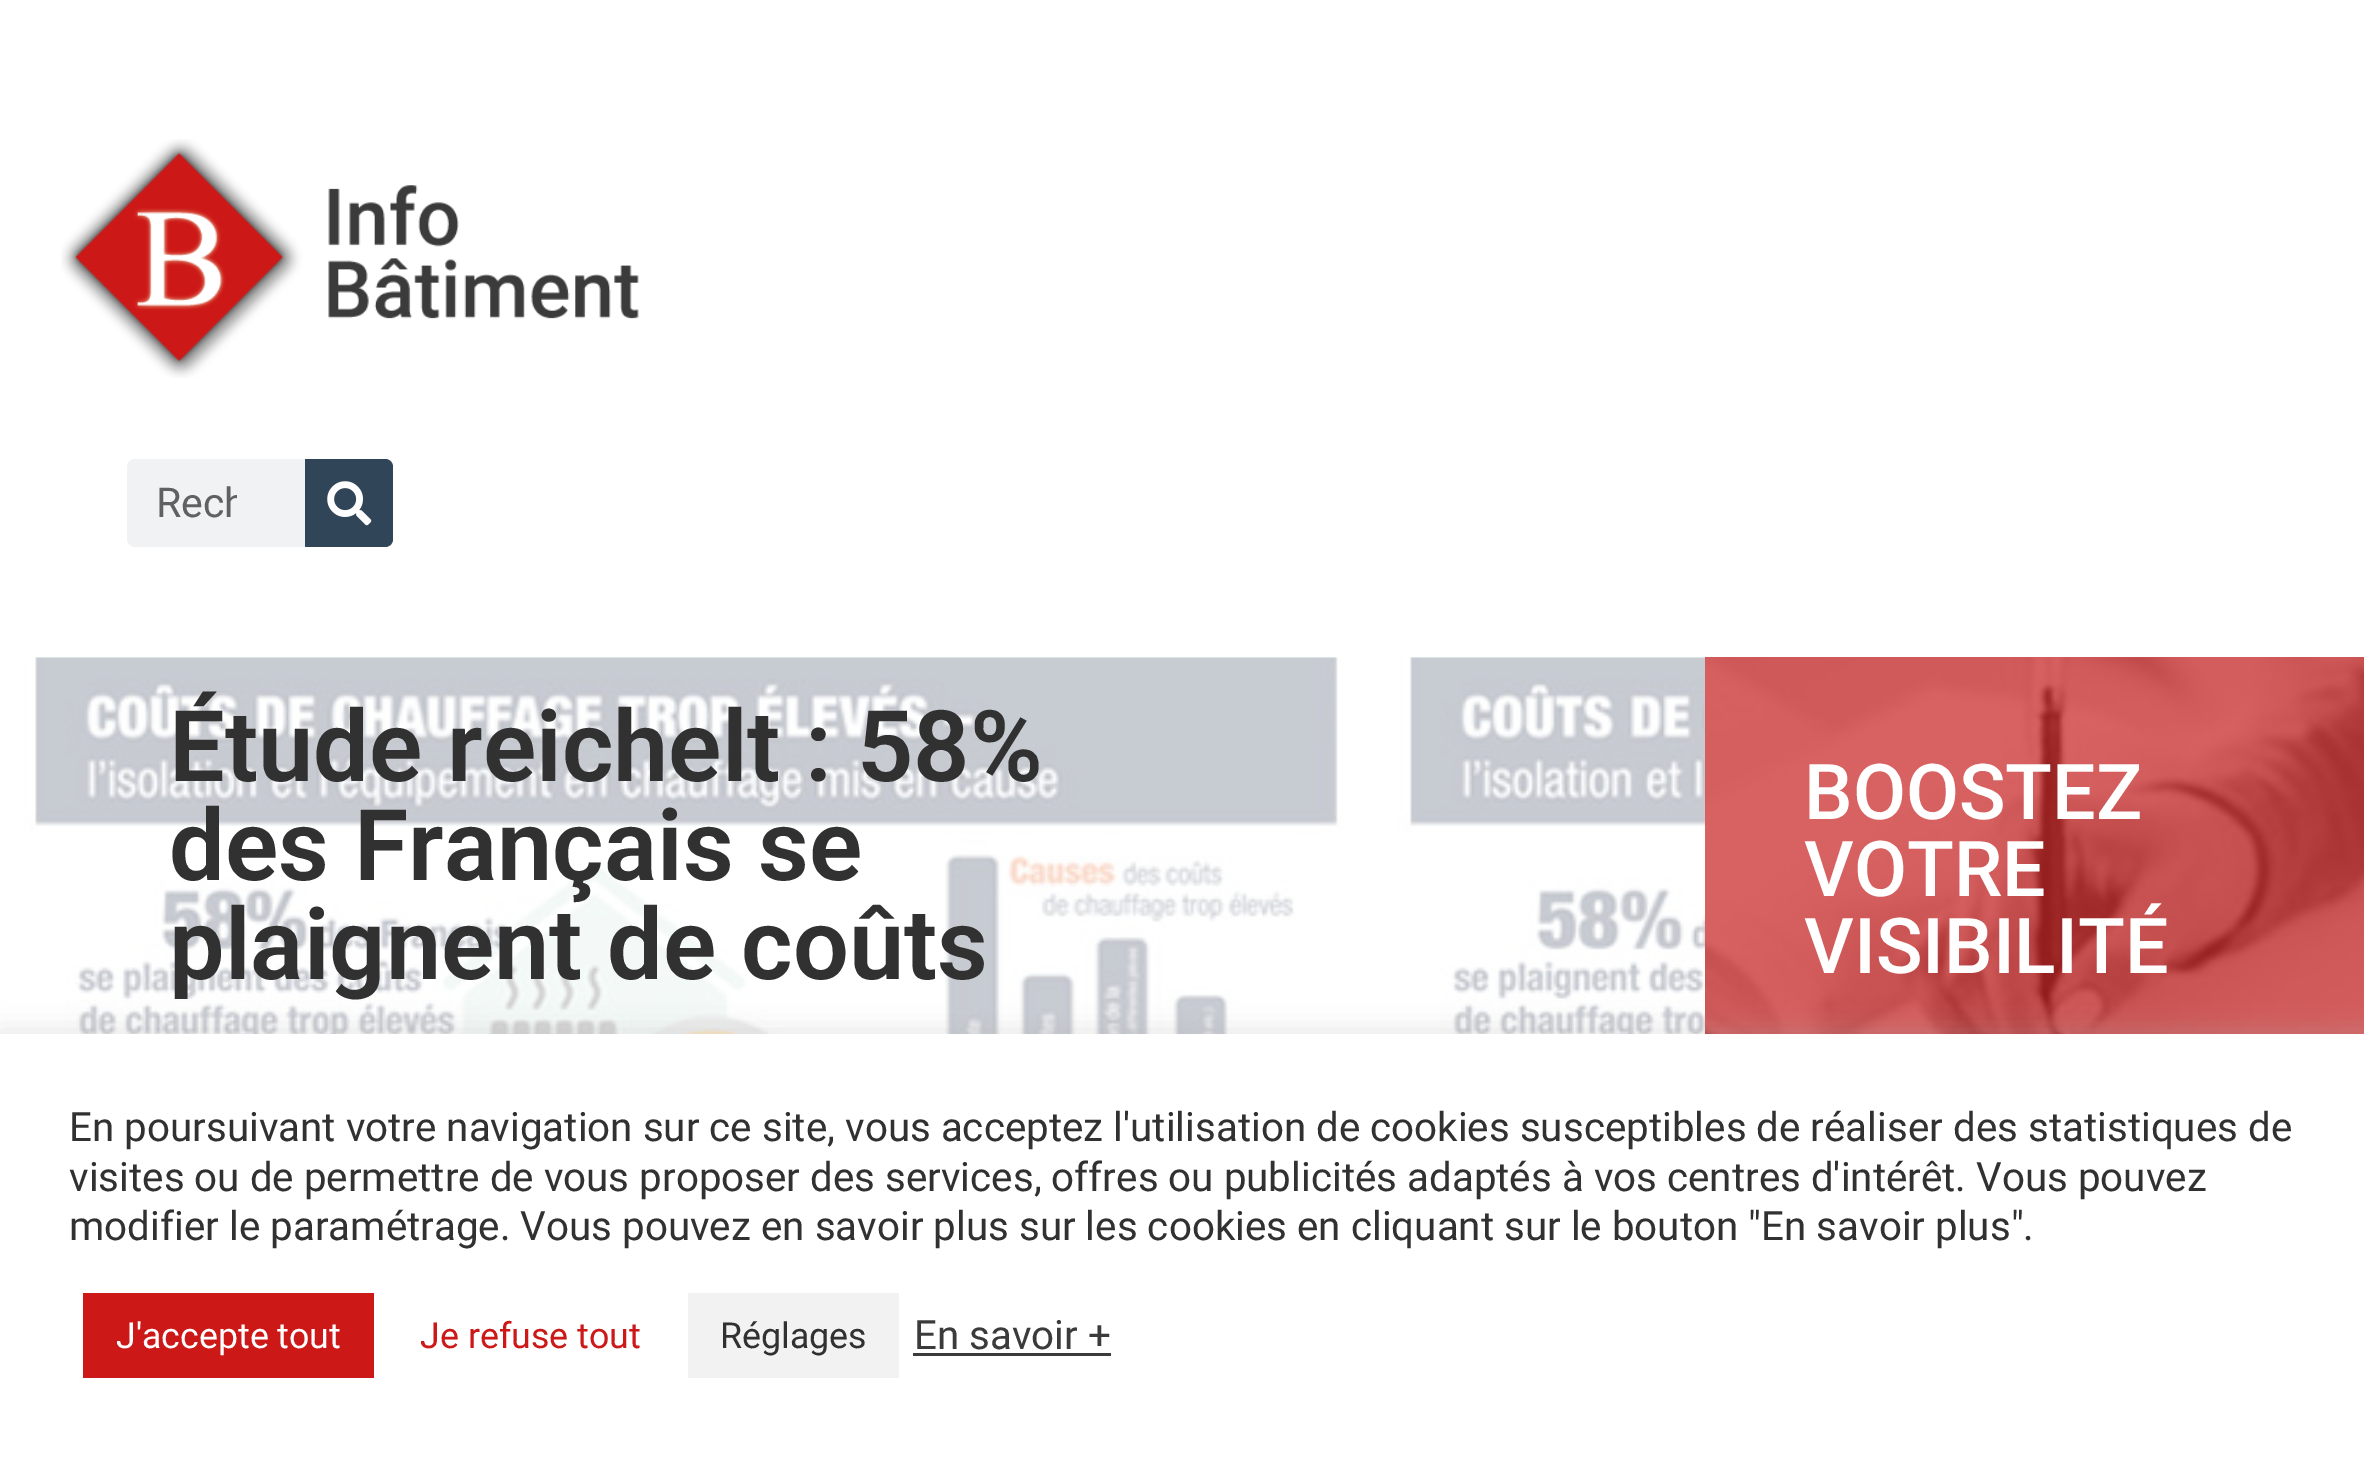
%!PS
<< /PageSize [2364 1458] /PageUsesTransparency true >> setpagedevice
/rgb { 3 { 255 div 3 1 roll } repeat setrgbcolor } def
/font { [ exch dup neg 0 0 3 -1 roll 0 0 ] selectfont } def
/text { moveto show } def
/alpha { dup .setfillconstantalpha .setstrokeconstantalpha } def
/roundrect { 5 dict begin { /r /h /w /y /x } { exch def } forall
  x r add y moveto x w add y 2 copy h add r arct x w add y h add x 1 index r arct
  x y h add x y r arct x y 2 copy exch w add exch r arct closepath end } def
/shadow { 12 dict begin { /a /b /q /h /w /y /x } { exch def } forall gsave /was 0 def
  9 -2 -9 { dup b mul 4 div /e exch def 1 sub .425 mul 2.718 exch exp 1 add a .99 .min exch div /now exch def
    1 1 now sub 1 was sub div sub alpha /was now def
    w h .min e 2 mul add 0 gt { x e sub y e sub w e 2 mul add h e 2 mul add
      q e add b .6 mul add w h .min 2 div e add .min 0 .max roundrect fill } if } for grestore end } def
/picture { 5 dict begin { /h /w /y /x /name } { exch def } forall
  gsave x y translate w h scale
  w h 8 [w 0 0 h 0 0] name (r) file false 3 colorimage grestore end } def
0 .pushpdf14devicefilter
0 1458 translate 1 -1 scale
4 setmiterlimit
255 255 255 rgb
0 0 2364 1458 rectfill
(img_01.rgb) 61 139 578 239 picture
241 242 243 rgb
127 459 266 88 8 roundrect fill
49 69 89 rgb
305 459 moveto 80 0 rlineto 4.5 0 8 3.5 8 8 rcurveto 0 72 rlineto 0 4.5 -3.5 8 -8 8 rcurveto -80 0 rlineto closepath fill
(img_02.rgb) 327 481 45 45 picture
(img_03.rgb) 22 657 2342 377 picture
(img_04.rgb) 1705 657 659 377 picture
0.7 alpha
204 35 35 rgb
1705 657 659 377 rectfill
1 alpha
172 171 171 rgb
0 1031 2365 427 0 14 0.3 shadow
255 255 255 rgb
0 1034 2364 424 rectfill
205 24 24 rgb
83 1293 291 85 rectfill
242 242 242 rgb
688 1293 211 85 rectfill
60 59 59 rgb
913 1353 198 3 rectfill
gsave
157 479 80 49 rectclip
/Roboto-Regular 41 font
96 97 97 rgb
(Rech) 156 517 text
grestore
/Roboto-SemiBold 99 font
49 49 49 rgb
(Étude reichelt : 58%) 169 781 text
(des Français se) 169 880 text
(plaignent de coûts) 169 979 text
/Roboto-Medium 77 font
255 255 255 rgb
(BOOSTEZ) 1804 819 text
(VOTRE) 1804 896 text
(VISIBILITÉ) 1804 973 text
/Roboto-Regular 40.33 font
49 49 49 rgb
(En poursuivant votre navigation sur ce site, vous acceptez l'utilisation de cookies susceptibles de réaliser des statistiques de) 69 1141 text
(visites ou de permettre de vous proposer des services, offres ou publicités adaptés à vos centres d'intérêt. Vous pouvez) 69 1191 text
(modifier le paramétrage. Vous pouvez en savoir plus sur les cookies en cliquant sur le bouton "En savoir plus".) 69 1240 text
/Roboto-Regular 35.75 font
255 255 255 rgb
(J'accepte tout) 116 1348 text
205 24 24 rgb
(Je refuse tout) 420 1348 text
49 49 49 rgb
(Réglages) 720 1348 text
/Roboto-Regular 40.33 font
60 59 59 rgb
(En savoir +) 914 1349 text
.poppdf14devicefilter showpage
